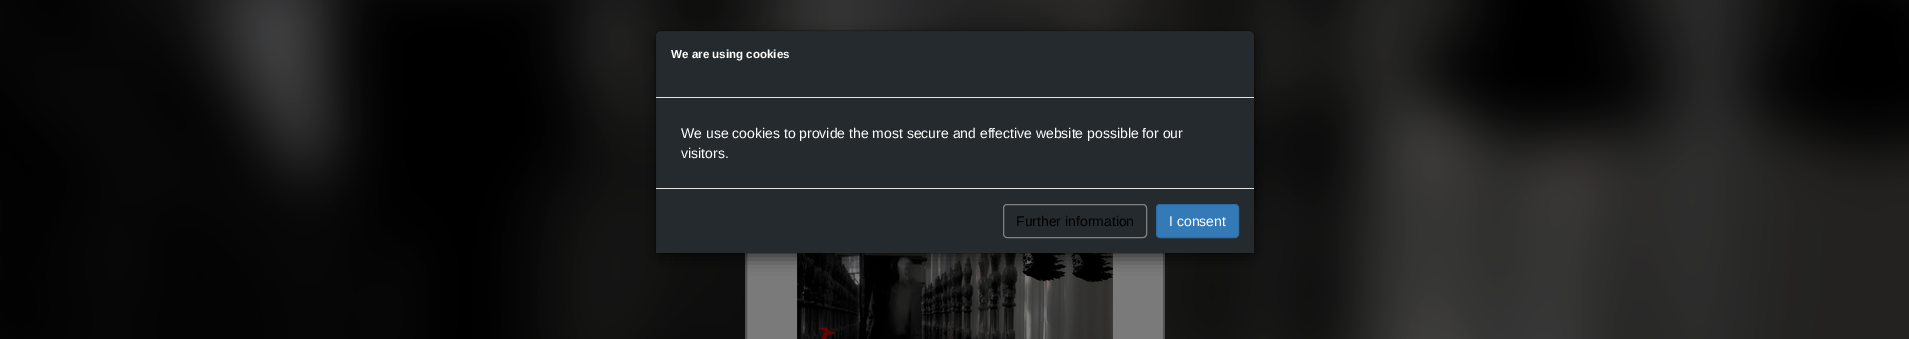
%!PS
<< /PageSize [1909 339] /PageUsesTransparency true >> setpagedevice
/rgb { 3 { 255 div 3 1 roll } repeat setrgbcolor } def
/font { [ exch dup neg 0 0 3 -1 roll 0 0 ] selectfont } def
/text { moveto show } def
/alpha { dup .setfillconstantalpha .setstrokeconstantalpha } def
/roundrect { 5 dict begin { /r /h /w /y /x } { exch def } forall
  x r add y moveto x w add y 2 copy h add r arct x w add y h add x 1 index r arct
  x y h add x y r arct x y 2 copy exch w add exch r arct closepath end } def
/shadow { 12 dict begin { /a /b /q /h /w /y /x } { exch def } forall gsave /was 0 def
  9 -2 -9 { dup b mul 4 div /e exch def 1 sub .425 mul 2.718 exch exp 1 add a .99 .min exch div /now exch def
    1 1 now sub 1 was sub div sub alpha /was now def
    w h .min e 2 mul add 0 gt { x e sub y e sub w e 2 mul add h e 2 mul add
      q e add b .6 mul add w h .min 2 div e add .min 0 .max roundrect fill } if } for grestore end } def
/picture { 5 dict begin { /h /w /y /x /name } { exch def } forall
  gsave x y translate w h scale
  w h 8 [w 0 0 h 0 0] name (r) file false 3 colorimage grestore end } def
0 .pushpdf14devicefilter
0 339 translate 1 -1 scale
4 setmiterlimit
255 255 255 rgb
0 0 1909 339 rectfill
(img_01.rgb) 0 0 1909 339 picture
122 122 122 rgb
745 253 420 86 rectfill
0.32 alpha
0 0 0 rgb
2 setlinewidth
746 101 418 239 rectstroke
1 alpha
(img_02.rgb) 797 253 316 86 picture
655 35 600 224 6 7.5 0.5 shadow
37 42 46 rgb
656 31 598 222 5 roundrect fill
0.2 alpha
0 0 0 rgb
1 setlinewidth
655.5 30.5 599 223 5.5 roundrect stroke
1 alpha
229 229 229 rgb
656 97 598 1 rectfill
37 42 46 rgb
656 249 598 4 rectfill
229 229 229 rgb
656 188 598 1 rectfill
128 128 128 rgb
1003.5 204.5 143 33 3.5 roundrect stroke
51 122 183 rgb
1156.5 204.5 82 33 3.5 roundrect gsave fill grestore
46 109 164 rgb
stroke
/LiberationSans-Bold 11.6 font
255 255 255 rgb
(We are using cookies) 671 58 text
/LiberationSans-Regular 14 font
(We use cookies to provide the most secure and effective website possible for our) 681 138 text
(visitors.) 681 158 text
0 0 0 rgb
(Further information) 1016 226 text
255 255 255 rgb
(I consent) 1169 226 text
.poppdf14devicefilter showpage
